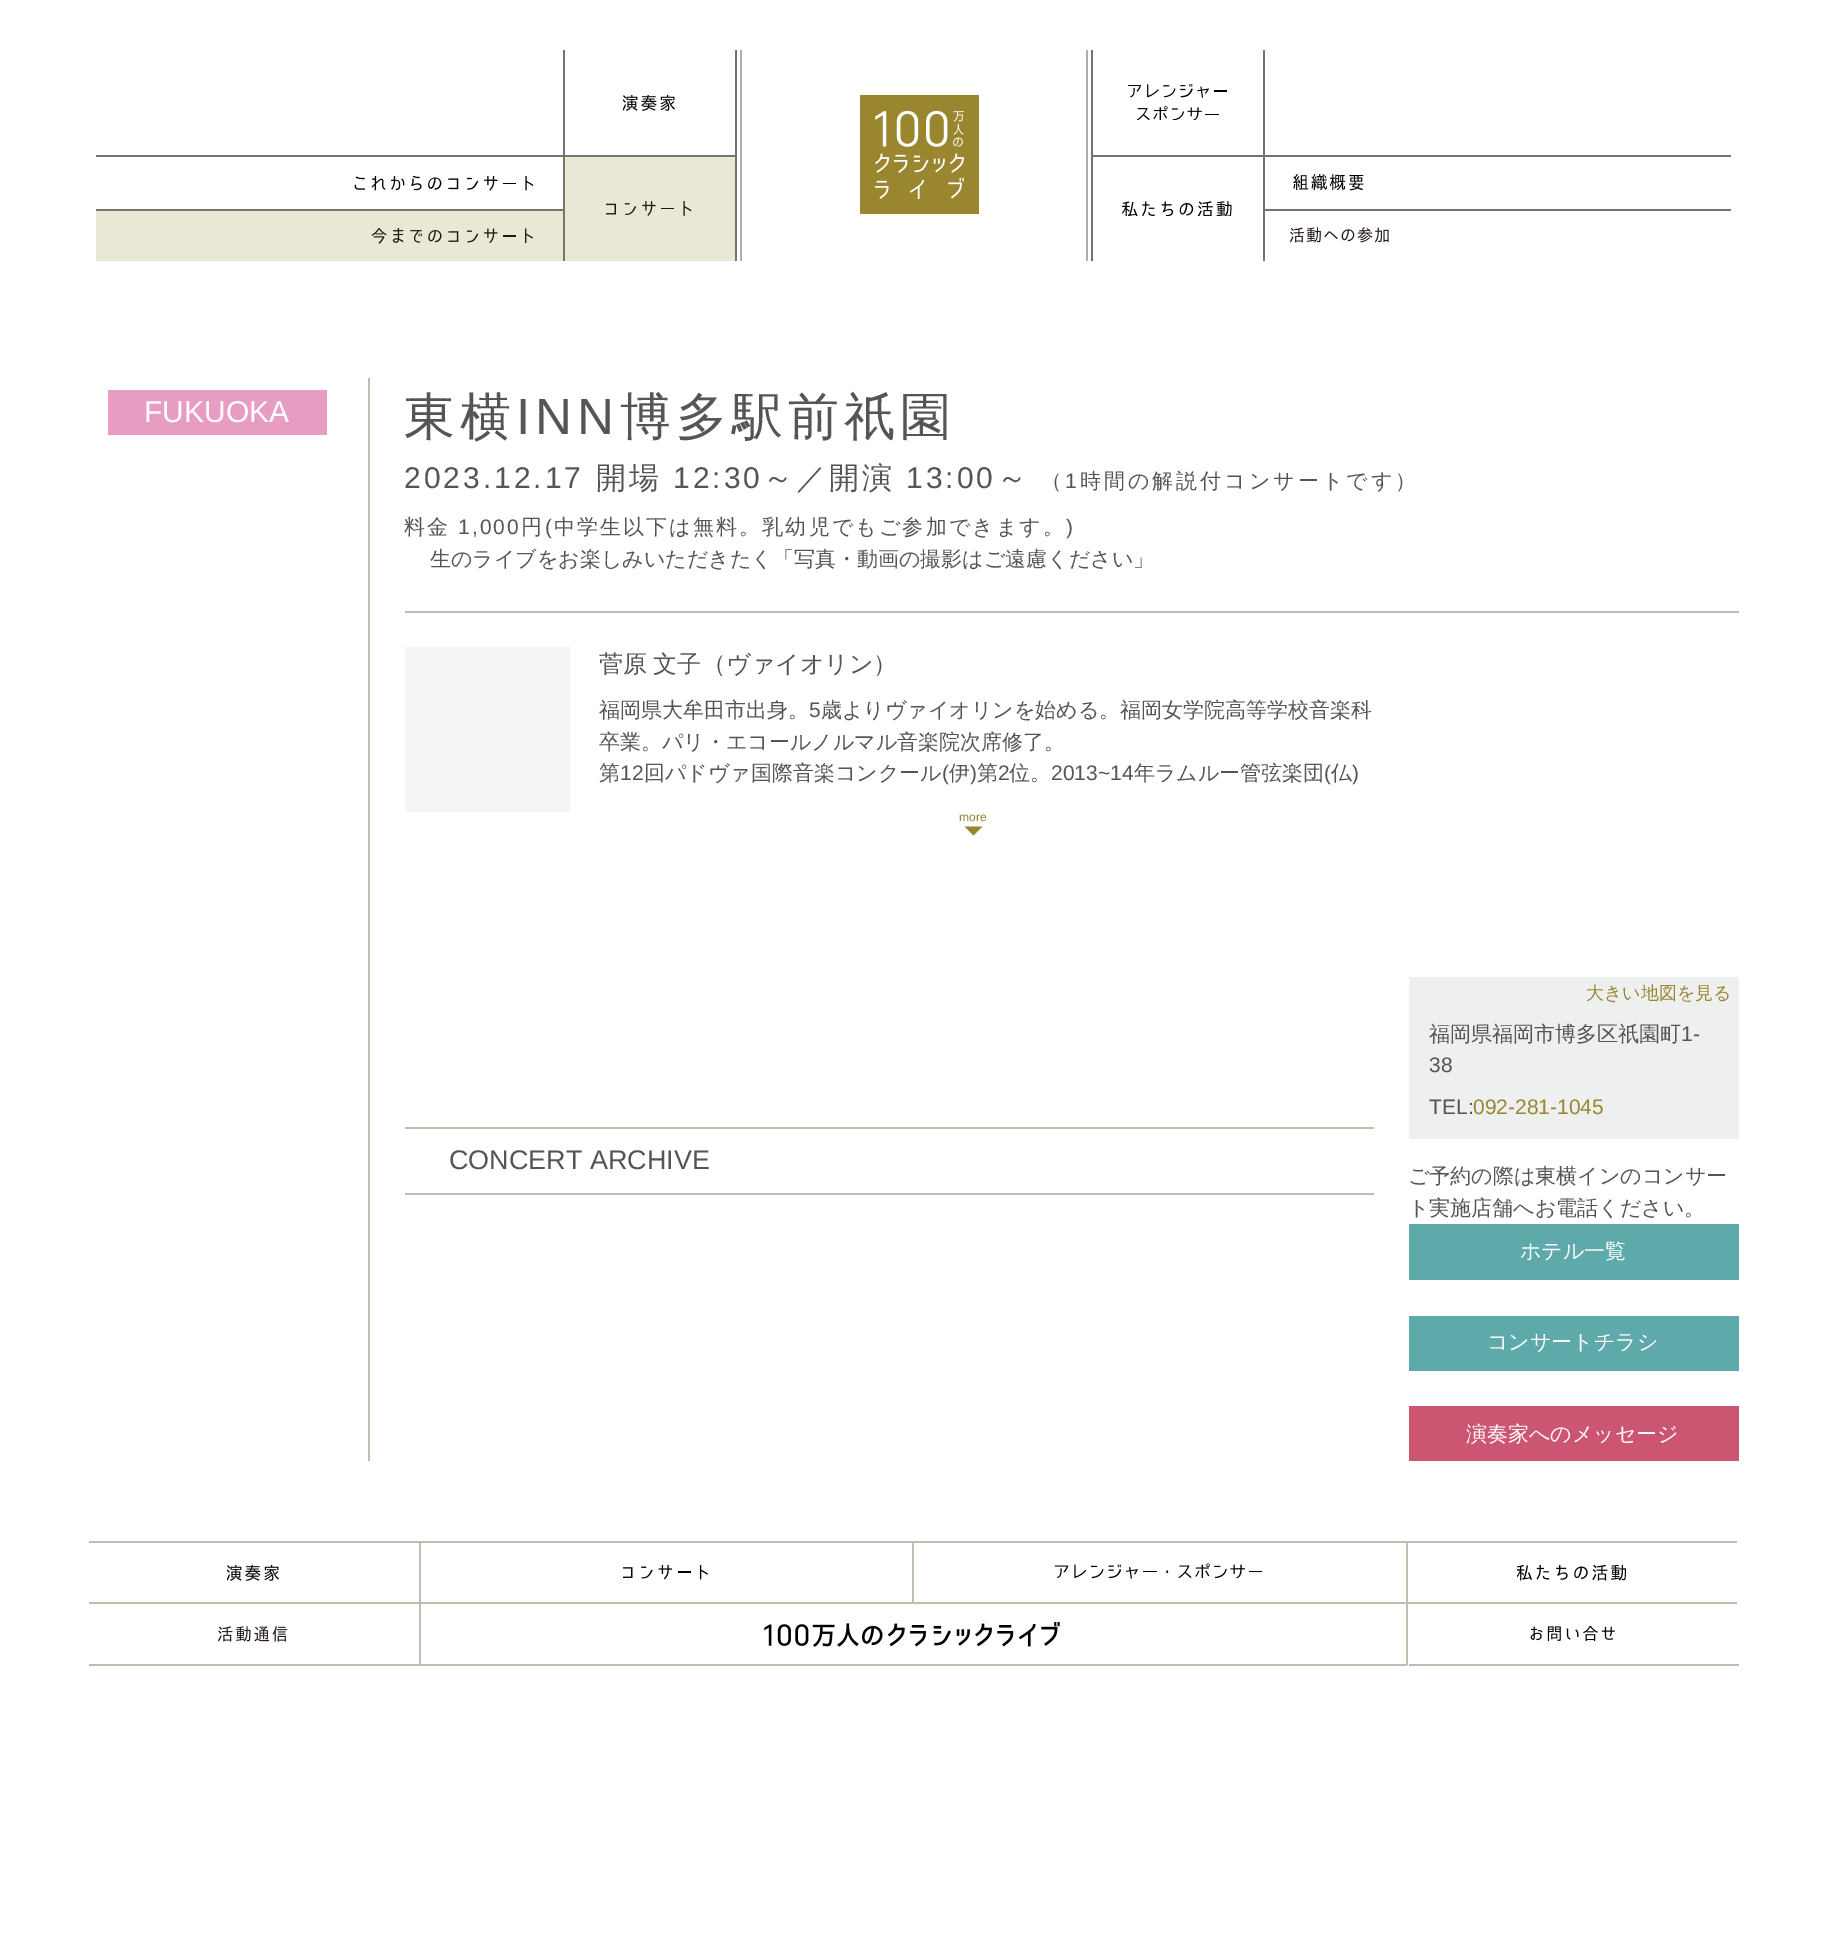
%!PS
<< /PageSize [1825 1957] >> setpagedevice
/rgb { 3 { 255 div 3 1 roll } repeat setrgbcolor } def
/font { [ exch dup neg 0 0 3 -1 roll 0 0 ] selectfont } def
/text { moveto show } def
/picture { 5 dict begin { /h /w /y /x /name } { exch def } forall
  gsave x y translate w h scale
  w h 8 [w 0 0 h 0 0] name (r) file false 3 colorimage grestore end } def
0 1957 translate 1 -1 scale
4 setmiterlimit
255 255 255 rgb
0 0 1825 1957 rectfill
235 231 213 rgb
96 211 467 50 rectfill
565 157 170 104 rectfill
(img_01.rgb) 623 95 52 16 picture
116 115 115 rgb
735 50 2 211 rectfill
563 155 174 1 rectfill
124 119 101 rgb
564 156 171 1 rectfill
116 115 115 rgb
563 50 2 106 rectfill
173 173 174 rgb
740 50 2 211 rectfill
(img_02.rgb) 1128 84 99 36 picture
116 115 115 rgb
1263 50 2 106 rectfill
1091 155 174 2 rectfill
1091 50 2 211 rectfill
173 173 174 rgb
1086 50 2 211 rectfill
(img_03.rgb) 606 201 86 15 picture
116 115 115 rgb
563 156 1 53 rectfill
124 119 101 rgb
563 210 1 51 rectfill
564 156 1 105 rectfill
(img_04.rgb) 354 176 180 15 picture
116 115 115 rgb
96 155 468 2 rectfill
(img_05.rgb) 371 228 162 16 picture
96 209 468 1 rectfill
124 119 101 rgb
96 210 468 1 rectfill
(img_06.rgb) 1122 201 110 15 picture
116 115 115 rgb
1263 156 2 105 rectfill
(img_07.rgb) 1293 174 71 17 picture
1263 155 468 2 rectfill
(img_08.rgb) 1290 227 99 16 picture
1263 209 468 2 rectfill
(img_09.rgb) 860 95 119 119 picture
191 188 178 rgb
368 378 2 1083 rectfill
405 611 1334 2 rectfill
231 157 194 rgb
108 390 219 45 rectfill
245 245 245 rgb
405 647 165 165 rectfill
154 134 47 rgb
964.5 826.5 moveto 18 0 rlineto -9 9 rlineto closepath fill
191 188 178 rgb
405 1127 969 2 rectfill
405 1193 969 2 rectfill
238 239 239 rgb
1409 977 330 162 rectfill
94 170 170 rgb
1409 1224 330 56 rectfill
1409 1316 330 55 rectfill
204 85 113 rgb
1409 1406 330 55 rectfill
(img_01.rgb) 227 1565 52 16 picture
191 188 178 rgb
89 1541 331 2 rectfill
419 1541 2 124 rectfill
89 1602 331 2 rectfill
(img_10.rgb) 623 1565 85 15 picture
420 1541 987 2 rectfill
912 1541 2 63 rectfill
420 1602 494 2 rectfill
(img_11.rgb) 1054 1563 208 16 picture
1406 1541 2 124 rectfill
914 1602 823 2 rectfill
(img_12.rgb) 1517 1565 109 16 picture
1407 1541 330 2 rectfill
(img_13.rgb) 218 1626 70 16 picture
89 1664 1318 2 rectfill
(img_14.rgb) 1530 1626 85 15 picture
1409 1664 330 2 rectfill
(img_15.rgb) 764 1622 296 25 picture
/LiberationSans-Regular 30 font
255 255 255 rgb
(FUKUOKA) 144 422 text
/WenQuanYiZenHei-Medium 51 font
85 85 85 rgb
404 434 moveto 5 0 (東横) ashow
/LiberationSans-Regular 51 font
516 434 moveto 5 0 (INN) ashow
/WenQuanYiZenHei-Medium 51 font
620 434 moveto 5 0 (博多駅前祇園) ashow
/LiberationSans-Regular 30 font
404 488 moveto 3 0 (2023.12.17) ashow
/WenQuanYiZenHei-Medium 30 font
596 488 moveto 3 0 (開場) ashow
/LiberationSans-Regular 30 font
673 488 moveto 3 0 (12:30) ashow
/WenQuanYiZenHei-Medium 30 font
763 488 moveto 3 0 (～／開演) ashow
/LiberationSans-Regular 30 font
906 488 moveto 3 0 (13:00) ashow
/WenQuanYiZenHei-Medium 30 font
997 488 moveto 3 0 (～) ashow
/WenQuanYiZenHei-Medium 21 font
1041 488 moveto 3 0 (（) ashow
/LiberationSans-Regular 21 font
1065 488 moveto 3 0 (1) ashow
/WenQuanYiZenHei-Medium 21 font
1080 488 moveto 3 0 (時間の解説付コンサートです）) ashow
404 534 moveto 2.1 0 (料金) ashow
/LiberationSans-Regular 21 font
458 534 moveto 2.1 0 (1,000) ashow
/WenQuanYiZenHei-Medium 21 font
521 534 moveto 2.1 0 (円) ashow
/LiberationSans-Regular 21 font
545 534 moveto 2.1 0 (\() ashow
/WenQuanYiZenHei-Medium 21 font
554 534 moveto 2.1 0 (中学生以下は無料。乳幼児でもご参加できます。) ashow
/LiberationSans-Regular 21 font
1066 534 moveto 2.1 0 (\)) ashow
/WenQuanYiZenHei-Medium 21 font
(生のライブをお楽しみいただきたく「写真・動画の撮影はご遠慮ください」) 430 566 text
/WenQuanYiZenHei-Medium 24 font
599 672 moveto -1 0 32 (菅原 文子) widthshow
(（ヴァイオリン）) 702 672 text
/WenQuanYiZenHei-Medium 21 font
(福岡県大牟田市出身。) 599 717 text
/LiberationSans-Regular 21 font
(5) 809 717 text
/WenQuanYiZenHei-Medium 21 font
(歳よりヴァイオリンを始める。福岡女学院高等学校音楽科) 821 717 text
(卒業。パリ・エコールノルマル音楽院次席修了。) 599 749 text
(第) 599 780 text
/LiberationSans-Regular 21 font
(12) 620 780 text
/WenQuanYiZenHei-Medium 21 font
(回パドヴァ国際音楽コンクール) 644 780 text
/LiberationSans-Regular 21 font
(\() 942 780 text
/WenQuanYiZenHei-Medium 21 font
(伊) 949 780 text
/LiberationSans-Regular 21 font
(\)) 970 780 text
/WenQuanYiZenHei-Medium 21 font
(第) 977 780 text
/LiberationSans-Regular 21 font
(2) 998 780 text
/WenQuanYiZenHei-Medium 21 font
(位。) 1009 780 text
/LiberationSans-Regular 21 font
(2013~14) 1051 780 text
/WenQuanYiZenHei-Medium 21 font
(年ラムルー管弦楽団) 1134 780 text
/LiberationSans-Regular 21 font
(\() 1324 780 text
/WenQuanYiZenHei-Medium 21 font
(仏) 1331 780 text
/LiberationSans-Regular 21 font
(\)) 1352 780 text
/LiberationSans-Regular 12 font
154 134 47 rgb
(more) 959 821 text
/LiberationSans-Regular 27 font
85 85 85 rgb
(CONCERT ARCHIVE) 449 1169 text
/WenQuanYiZenHei-Medium 18 font
154 134 47 rgb
(大きい地図を見る) 1586 999 text
/WenQuanYiZenHei-Medium 21 font
85 85 85 rgb
(福岡県福岡市博多区祇園町) 1429 1041 text
/LiberationSans-Regular 21 font
(1-) 1681 1041 text
(38) 1429 1072 text
(TEL:) 1429 1114 text
154 134 47 rgb
(092-281-1045) 1473 1114 text
/WenQuanYiZenHei-Medium 21 font
85 85 85 rgb
(ご予約の際は東横インのコンサー) 1408 1183 text
(ト実施店舗へお電話ください。) 1408 1215 text
255 255 255 rgb
(ホテル一覧) 1520 1258 text
(コンサートチラシ) 1487 1349 text
(演奏家へのメッセージ) 1466 1441 text
showpage
